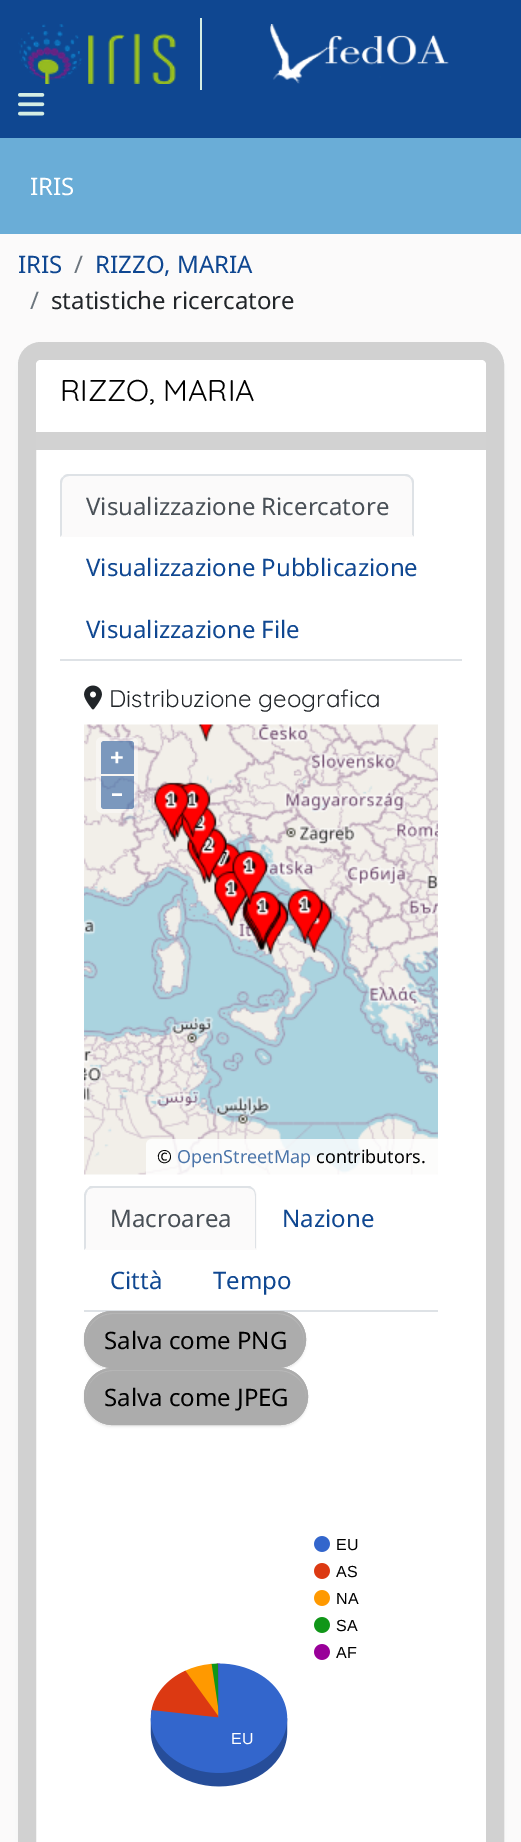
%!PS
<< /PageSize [521 1842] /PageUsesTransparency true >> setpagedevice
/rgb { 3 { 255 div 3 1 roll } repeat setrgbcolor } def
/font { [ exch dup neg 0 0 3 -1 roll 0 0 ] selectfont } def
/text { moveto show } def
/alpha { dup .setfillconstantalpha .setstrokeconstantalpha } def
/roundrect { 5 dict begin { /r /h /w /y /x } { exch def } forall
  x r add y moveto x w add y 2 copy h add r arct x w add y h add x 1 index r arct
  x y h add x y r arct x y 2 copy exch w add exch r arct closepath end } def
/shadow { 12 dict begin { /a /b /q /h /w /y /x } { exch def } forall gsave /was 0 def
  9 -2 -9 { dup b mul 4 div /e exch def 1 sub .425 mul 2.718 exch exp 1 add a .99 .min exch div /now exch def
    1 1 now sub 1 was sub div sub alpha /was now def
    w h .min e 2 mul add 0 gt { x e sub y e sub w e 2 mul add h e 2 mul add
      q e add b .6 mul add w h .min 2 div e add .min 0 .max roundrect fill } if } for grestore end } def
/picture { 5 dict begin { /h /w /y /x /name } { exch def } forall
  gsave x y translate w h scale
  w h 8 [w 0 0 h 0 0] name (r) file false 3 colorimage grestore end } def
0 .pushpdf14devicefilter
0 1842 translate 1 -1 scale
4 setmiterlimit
251 250 250 rgb
0 0 521 1842 rectfill
15 71 145 rgb
0 0 521 138 rectfill
213 238 228 rgb
200 18 2 72 rectfill
(img_01.rgb) 18 24 158 60 picture
(img_02.rgb) 270 24 179 60 picture
(img_03.rgb) 18 93 27 23 picture
106 173 215 rgb
0 138 521 96 rectfill
238 238 238 rgb
21 351 480 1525 20 4.5 1 shadow
255 255 255 rgb
18 342 486 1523 23 roundrect fill
0.18 alpha
0 0 0 rgb
18 setlinewidth
27 351 468 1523 14 roundrect stroke
1 alpha
255 255 255 rgb
41 360 moveto 440 0 rlineto 3 0 5 2 5 5 rcurveto 0 85 rlineto -450 0 rlineto 0 -85 rlineto 0 -3 2 -5 5 -5 rcurveto closepath fill
210 210 210 rgb
36 432 450 18 rectfill
222 226 230 rgb
60 659 402 2 rectfill
251 250 250 rgb
69 474 moveto 336 0 rlineto 5 0 9 4 9 9 rcurveto 0 54 rlineto -354 0 rlineto 0 -54 rlineto 0 -5 4 -9 9 -9 rcurveto closepath fill
222 226 230 rgb
69 474 moveto -3 0 -5 1 -6 3 rcurveto 1 1 rlineto 1 -1 3 -2 5 -2 rcurveto 336 0 rlineto 2 0 4 1 5 2 rcurveto 1 -1 rlineto -1 -2 -3 -3 -6 -3 rcurveto closepath fill
414 537 moveto 0 -54 rlineto 0 -3 -1 -5 -3 -6 rcurveto -1 1 rlineto 1 1 2 3 2 5 rcurveto 0 52 rlineto closepath fill
251 250 250 rgb
414 537 moveto -2 -2 rlineto 0 1 rlineto -350 0 rlineto 0 -1 rlineto -2 2 rlineto closepath fill
222 226 230 rgb
60 537 moveto 2 -2 rlineto 0 -52 rlineto 0 -2 1 -4 2 -5 rcurveto -1 -1 rlineto -2 1 -3 3 -3 6 rcurveto closepath fill
(img_04.rgb) 84 685 18 25 picture
(img_05.rgb) 84 724 354 451 picture
0.4 alpha
255 255 255 rgb
96 737 42 76 6 roundrect fill
0.5 alpha
0 60 136 rgb
104 741 moveto 27 0 rlineto 1.5 0 3 1.5 3 3 rcurveto 0 30 rlineto -33 0 rlineto 0 -30 rlineto 0 -1.5 1.5 -3 3 -3 rcurveto closepath fill
101 776 moveto 33 0 rlineto 0 30 rlineto 0 1.5 -1.5 3 -3 3 rcurveto -27 0 rlineto -1.5 0 -3 -1.5 -3 -3 rcurveto closepath fill
0.8 alpha
255 255 255 rgb
152 1139 moveto 286 0 rlineto 0 36 rlineto -292 0 rlineto 0 -30 rlineto 0 -3.5 2.5 -6 6 -6 rcurveto closepath fill
1 alpha
222 226 230 rgb
84 1310 354 2 rectfill
251 250 250 rgb
93 1187 moveto 155 0 rlineto 5 0 9 4 9 9 rcurveto 0 54 rlineto -173 0 rlineto 0 -54 rlineto 0 -5 4 -9 9 -9 rcurveto closepath fill
222 226 230 rgb
93 1188 moveto -2 0 -4 1 -5 2 rcurveto -1 -1 rlineto 3 -3 rlineto 160 0 rlineto 4 3 rlineto -1 1 rlineto -1 -1 -3 -2 -5 -2 rcurveto closepath fill
254 1189 moveto 1 2 2 5 2 7 rcurveto 0 53 rlineto -1 -1 rlineto 0 -52 rlineto 0 -3 -1 -5 -2 -6 rcurveto closepath fill
251 250 250 rgb
256 1250 moveto -172 0 rlineto 2 -2 rlineto 169 0 rlineto closepath fill
222 226 230 rgb
84 1250 moveto 2 -2 rlineto 0 -52 rlineto 0 -2 1 -4 2 -6 rcurveto -1 -1 rlineto -2 2 -3 5 -3 7 rcurveto closepath fill
0 0 0 rgb
84 1313 222 57 28.5 1 0.07 shadow
172 172 172 rgb
84 1311 222 57 28.5 roundrect fill
184 184 184 rgb
112 1314 moveto 166 0 rlineto 14 0 26 12 26 27 rcurveto 0 7 -2 12 -6 17 rcurveto 4 -5 7 -11 7 -18 rcurveto 0 -15 -12 -27 -27 -27 rcurveto -165 0 rlineto -15 0 -27 12 -27 27 rcurveto 0 -14 12 -26 26 -26 rcurveto closepath fill
172 172 172 rgb
2 setlinewidth
85 1312 220 55 27.5 roundrect stroke
0 0 0 rgb
84 1370 224 57 28.5 1 0.07 shadow
172 172 172 rgb
84 1368 224 57 28.5 roundrect fill
184 184 184 rgb
112 1371 moveto 167 0 rlineto 15 0 27 12 27 26 rcurveto 0 -15 -12 -27 -27 -27 rcurveto -166 0 rlineto -15 0 -27 12 -27 27 rcurveto 0 -14 12 -26 26 -26 rcurveto closepath fill
172 172 172 rgb
85 1369 222 55 27.5 roundrect stroke
(img_06.rgb) 150 1536 180 251 picture
/NotoSans-Regular 24 font
255 255 255 rgb
(IRIS) 30 195 text
15 71 145 rgb
(IRIS) 18 273 text
108 117 125 rgb
(/) 74 273 text
15 71 145 rgb
(RIZZO, MARIA) 95 273 text
108 117 125 rgb
(/) 30 309 text
33 37 41 rgb
(statistiche ricercatore) 51 309 text
/Quicksand-Light 30 font
0 0 0 rgb
(RIZZO, MARIA) 60 401 text
/NotoSans-Regular 24 font
73 80 87 rgb
(Visualizzazione Ricercatore) 86 515 text
15 71 145 rgb
(Visualizzazione Pubblicazione) 86 576 text
(Visualizzazione File) 86 638 text
/Quicksand-Light 24 font
33 37 41 rgb
(Distribuzione geografica) 109 707 text
/NotoSans-Bold 24 font
255 255 255 rgb
(+) 110 766 text
(–) 111 801 text
/NotoSans-Regular 18 font
0 0 0 rgb
(©) 157 1163 text
75 117 170 rgb
(OpenStreetMap) 177 1163 text
0 0 0 rgb
(contributors.) 316 1163 text
/NotoSans-Regular 24 font
73 80 87 rgb
(Macroarea) 110 1227 text
15 71 145 rgb
(Nazione) 282 1227 text
(Città) 110 1289 text
(Tempo) 213 1289 text
0 0 0 rgb
(Salva come PNG) 104 1349 text
(Salva come JPEG) 104 1406 text
/LiberationSans-Regular 16 font
(EU) 336 1550 text
(AS) 336 1577 text
(NA) 336 1604 text
(SA) 336 1631 text
(AF) 336 1658 text
255 255 255 rgb
(EU) 231 1744 text
.poppdf14devicefilter showpage
